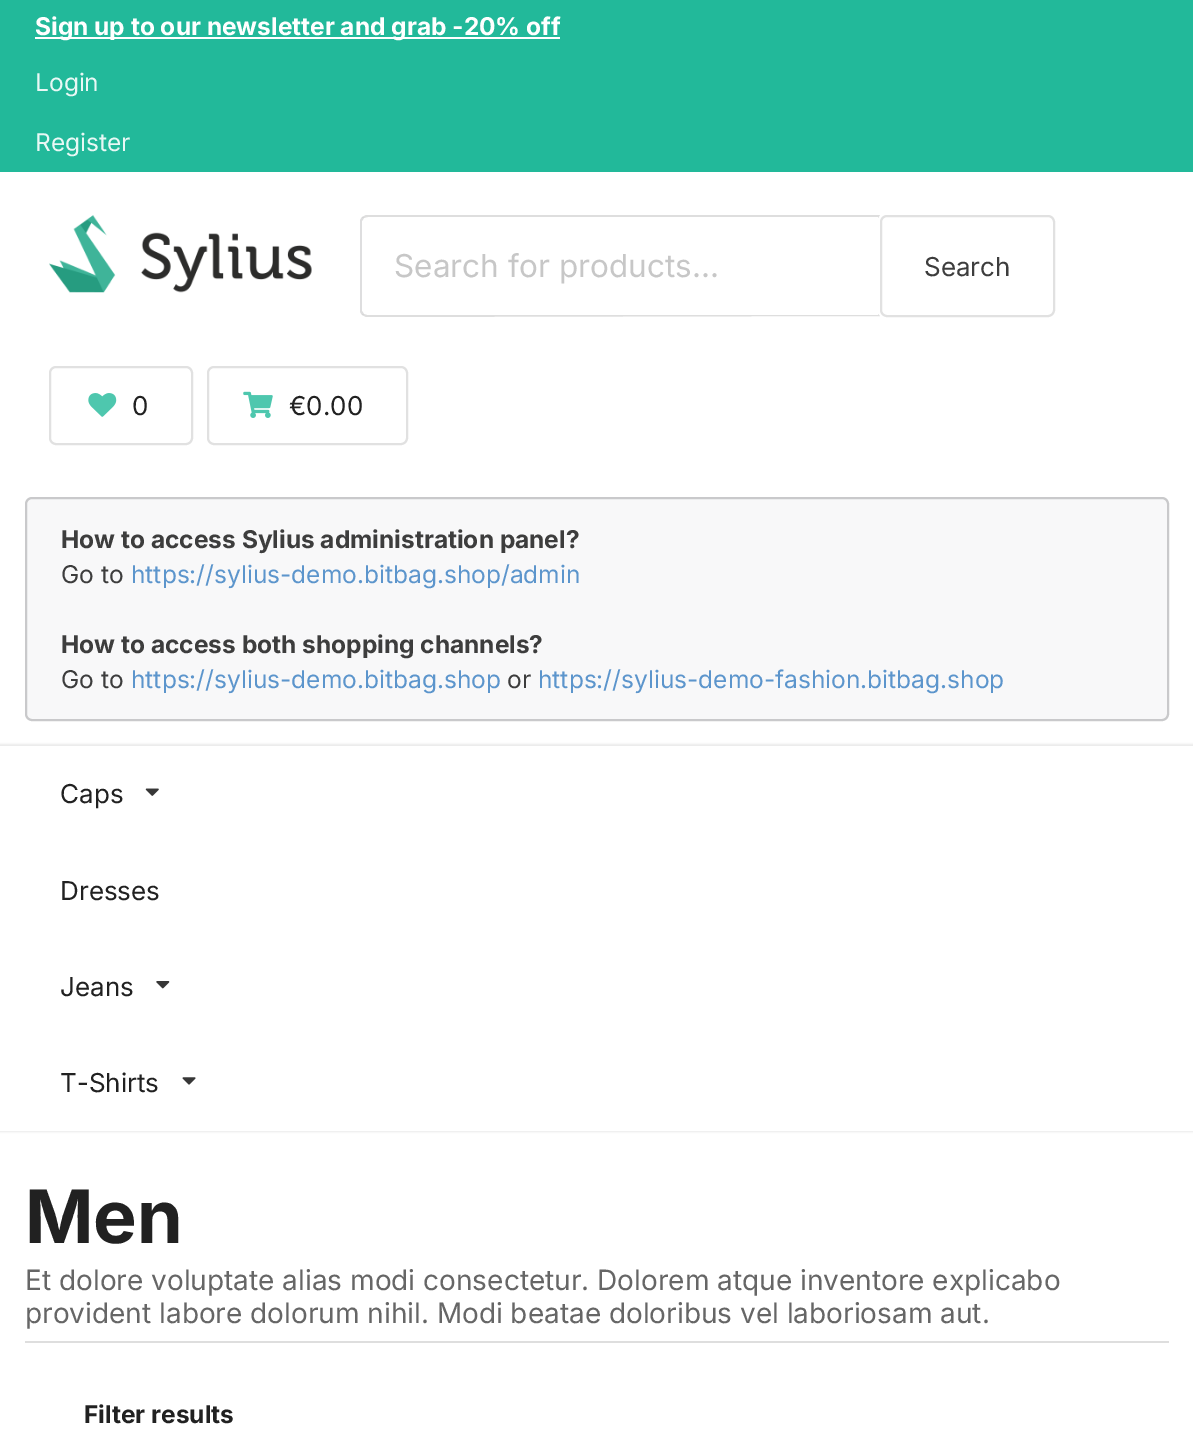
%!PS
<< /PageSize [1193 1443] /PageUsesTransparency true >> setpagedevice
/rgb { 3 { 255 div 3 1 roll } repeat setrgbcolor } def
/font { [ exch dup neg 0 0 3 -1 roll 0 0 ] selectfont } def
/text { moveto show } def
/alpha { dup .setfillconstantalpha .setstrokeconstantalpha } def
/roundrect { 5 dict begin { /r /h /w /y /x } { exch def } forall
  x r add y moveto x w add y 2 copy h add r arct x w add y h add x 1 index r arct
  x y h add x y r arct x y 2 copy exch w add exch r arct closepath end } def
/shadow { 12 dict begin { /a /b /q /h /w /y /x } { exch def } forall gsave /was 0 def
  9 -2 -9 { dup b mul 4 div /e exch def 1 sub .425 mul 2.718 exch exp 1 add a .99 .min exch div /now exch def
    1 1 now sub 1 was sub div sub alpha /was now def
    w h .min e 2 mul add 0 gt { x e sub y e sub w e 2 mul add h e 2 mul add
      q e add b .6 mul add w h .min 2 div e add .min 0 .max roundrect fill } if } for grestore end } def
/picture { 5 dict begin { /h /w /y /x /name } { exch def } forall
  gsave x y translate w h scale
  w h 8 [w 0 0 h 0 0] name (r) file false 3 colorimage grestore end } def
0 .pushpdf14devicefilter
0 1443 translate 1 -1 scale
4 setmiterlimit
255 255 255 rgb
0 0 1193 1443 rectfill
34 185 154 rgb
0 0 1193 172 rectfill
255 255 255 rgb
35 37 525 2 rectfill
(img_01.rgb) 49 215 263 78 picture
222 222 222 rgb
368 217 moveto -2 0 -3 1 -4 1 rcurveto -2 -1 rlineto 4 -2 rlineto 514 0 rlineto -2 3 rlineto 0 -1 rlineto closepath fill
366 317 moveto -4 -2 rlineto 2 -1 rlineto 3 1 rlineto 511 0 rlineto 0 -1 rlineto 2 2 rlineto closepath fill
0.15 alpha
34 36 38 rgb
360 220 moveto 2 -3 rlineto 2 1 rlineto -2 3 rlineto 0 90 rlineto 2 3 rlineto -2 1 rlineto -2 -3 rlineto closepath fill
1 alpha
225 225 225 rgb
2 setlinewidth
881 216 173 100 6 roundrect stroke
50 367 142 77 6 roundrect stroke
(img_02.rgb) 88 393 29 24 picture
208 367 199 77 6 roundrect stroke
(img_03.rgb) 243 391 30 27 picture
248 248 249 rgb
25 497 1144 224 7 roundrect fill
0.22 alpha
34 36 38 rgb
26 498 1142 222 6 roundrect stroke
1 alpha
234 234 234 rgb
-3 744 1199 388 0 1 1 shadow
255 255 255 rgb
0 746 1193 385 rectfill
(img_04.rgb) 145 788 14 8 picture
(img_05.rgb) 156 981 14 8 picture
(img_06.rgb) 182 1077 14 8 picture
222 222 222 rgb
25 1341 1144 2 rectfill
/Inter-Bold 24.5 font
255 255 255 rgb
(Sign up to our newsletter and grab -20% off) 35 35 text
/Inter-Regular 24.5 font
233 248 245 rgb
(Login) 35 91 text
(Register) 35 151 text
/Inter-Regular 31.5 font
199 199 199 rgb
(Search for products...) 394 277 text
/Inter-Regular 26 font
61 61 61 rgb
(Search) 924 276 text
33 33 33 rgb
(0) 132 415 text
(€0.00) 289 415 text
/Inter-Bold 24.5 font
61 61 61 rgb
(How to access Sylius administration panel?) 61 548 text
/Inter-Regular 24.5 font
(Go to) 61 583 text
92 149 204 rgb
(https://sylius-demo.bitbag.shop/admin) 131 583 text
/Inter-Bold 24.5 font
61 61 61 rgb
(How to access both shopping channels?) 61 653 text
/Inter-Regular 24.5 font
(Go to) 61 688 text
92 149 204 rgb
(https://sylius-demo.bitbag.shop) 131 688 text
61 61 61 rgb
(or) 507 688 text
92 149 204 rgb
(https://sylius-demo-fashion.bitbag.shop) 538 688 text
/Inter-Regular 26 font
33 33 33 rgb
(Caps) 60 803 text
(Dresses) 60 900 text
(Jeans) 60 996 text
(T-Shirts) 60 1092 text
/Inter-Bold 73.5 font
(Men) 25 1243 text
/Inter-Regular 28 font
102 102 102 rgb
(Et dolore voluptate alias modi consectetur. Dolorem atque inventore explicabo) 25 1290 text
(provident labore dolorum nihil. Modi beatae doloribus vel laboriosam aut.) 25 1323 text
/Inter-Bold 24.5 font
33 33 33 rgb
(Filter results) 84 1423 text
.poppdf14devicefilter showpage
